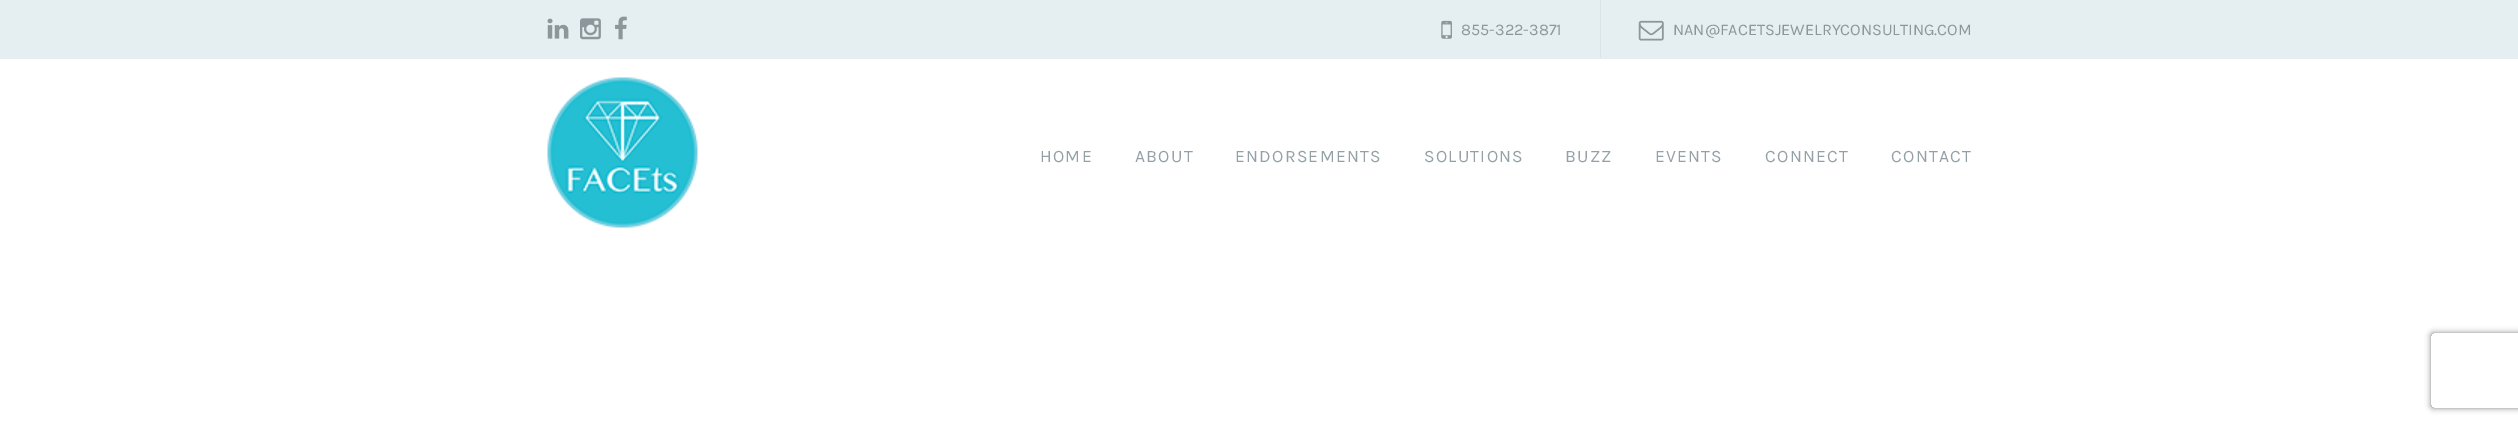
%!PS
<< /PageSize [2518 425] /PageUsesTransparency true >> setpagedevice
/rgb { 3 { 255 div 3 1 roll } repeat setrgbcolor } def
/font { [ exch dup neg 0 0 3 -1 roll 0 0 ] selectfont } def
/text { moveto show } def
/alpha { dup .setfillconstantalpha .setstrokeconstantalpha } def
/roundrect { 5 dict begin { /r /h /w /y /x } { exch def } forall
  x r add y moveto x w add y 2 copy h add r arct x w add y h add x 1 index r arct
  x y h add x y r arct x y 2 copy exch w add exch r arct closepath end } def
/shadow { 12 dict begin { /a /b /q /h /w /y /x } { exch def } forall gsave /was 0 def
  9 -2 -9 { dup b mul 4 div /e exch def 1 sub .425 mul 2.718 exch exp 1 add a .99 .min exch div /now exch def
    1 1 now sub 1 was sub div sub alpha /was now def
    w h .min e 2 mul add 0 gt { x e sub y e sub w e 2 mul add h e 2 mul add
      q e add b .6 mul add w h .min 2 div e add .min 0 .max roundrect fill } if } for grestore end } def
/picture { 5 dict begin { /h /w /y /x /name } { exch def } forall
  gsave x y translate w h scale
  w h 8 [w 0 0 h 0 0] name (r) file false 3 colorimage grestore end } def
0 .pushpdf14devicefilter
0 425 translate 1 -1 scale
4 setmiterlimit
255 255 255 rgb
0 0 2518 425 rectfill
229 238 240 rgb
0 0 2518 59 rectfill
(img_01.rgb) 547 18 22 21 picture
(img_02.rgb) 580 18 21 22 picture
(img_03.rgb) 615 16 12 24 picture
(img_04.rgb) 1441 20 11 19 picture
218 228 230 rgb
1600 0 1 58 rectfill
(img_05.rgb) 1638 20 26 21 picture
(img_06.rgb) 547 77 151 151 picture
gsave
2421 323 moveto 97 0 rlineto 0 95 rlineto -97 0 rlineto closepath 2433.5 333 moveto 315 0 rlineto 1.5 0 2.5 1 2.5 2.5 rcurveto 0 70 rlineto 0 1.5 -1 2.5 -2.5 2.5 rcurveto -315 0 rlineto -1.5 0 -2.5 -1 -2.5 -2.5 rcurveto 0 -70 rlineto 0 -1.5 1 -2.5 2.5 -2.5 rcurveto closepath eoclip newpath
128 128 128 rgb
2431 333 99 75 2.5 3 1 shadow
grestore
/Karla-Regular 16.25 font
141 150 154 rgb
(855-322-3871) 1461 35 text
(NAN@FACETSJEWELRYCONSULTING.COM) 1673 35 text
/Karla-Regular 17.5 font
147 161 167 rgb
1040 162 moveto 1.25 0 (HOME) ashow
1135 162 moveto 1.25 0 (ABOUT) ashow
1235 162 moveto 1.25 0 (ENDORSEMENTS) ashow
1424 162 moveto 1.25 0 (SOLUTIONS) ashow
1565 162 moveto 1.25 0 (BUZZ) ashow
1655 162 moveto 1.25 0 (EVENTS) ashow
1765 162 moveto 1.25 0 (CONNECT) ashow
1891 162 moveto 1.25 0 (CONTACT) ashow
.poppdf14devicefilter showpage
